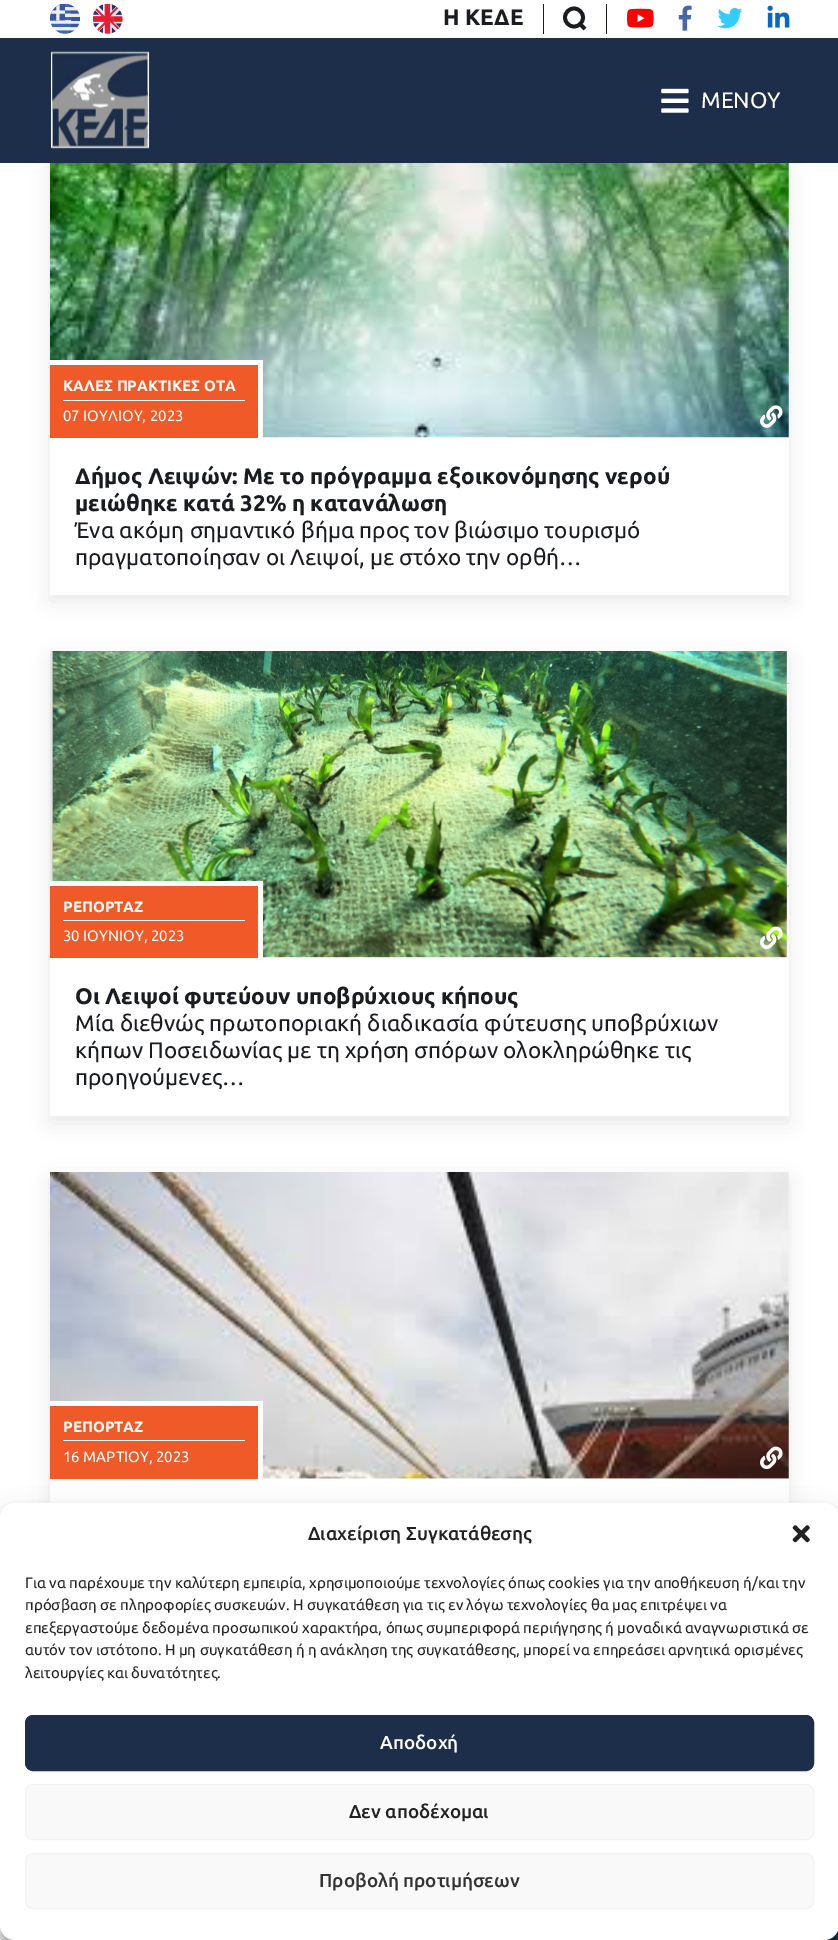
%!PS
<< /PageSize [838 1940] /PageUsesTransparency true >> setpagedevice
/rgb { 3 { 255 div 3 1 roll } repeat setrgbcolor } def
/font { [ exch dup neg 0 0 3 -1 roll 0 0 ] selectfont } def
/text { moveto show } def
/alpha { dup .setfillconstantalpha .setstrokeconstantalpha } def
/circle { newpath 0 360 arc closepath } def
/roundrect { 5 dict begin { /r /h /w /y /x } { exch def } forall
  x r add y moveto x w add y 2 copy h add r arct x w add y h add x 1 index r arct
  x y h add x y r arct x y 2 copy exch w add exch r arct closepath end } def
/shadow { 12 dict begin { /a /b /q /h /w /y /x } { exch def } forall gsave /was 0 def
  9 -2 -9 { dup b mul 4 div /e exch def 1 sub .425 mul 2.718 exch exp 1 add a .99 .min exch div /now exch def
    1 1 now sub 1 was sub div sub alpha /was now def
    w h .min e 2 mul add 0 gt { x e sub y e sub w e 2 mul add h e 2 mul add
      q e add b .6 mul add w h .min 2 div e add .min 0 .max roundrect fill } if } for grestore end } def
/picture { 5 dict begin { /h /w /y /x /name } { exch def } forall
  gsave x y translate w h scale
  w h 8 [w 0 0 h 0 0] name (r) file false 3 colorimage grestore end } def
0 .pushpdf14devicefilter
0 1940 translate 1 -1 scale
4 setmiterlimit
255 255 255 rgb
0 0 838 1940 rectfill
(img_01.rgb) 50 4 30 30 picture
(img_02.rgb) 93 4 30 30 picture
25 28 32 rgb
606 4 1 30 rectfill
543 4 1 30 rectfill
3.8 setlinewidth
574 17.5 9 circle stroke
580 24 moveto 5 5 rlineto closepath stroke
(img_03.rgb) 627 8 27 20 picture
(img_04.rgb) 678 5 14 26 picture
(img_05.rgb) 717 8 26 21 picture
(img_06.rgb) 767 5 23 23 picture
232 232 232 rgb
50 138 739 463 0 9.5 1 shadow
28 46 74 rgb
0 38 838 125 rectfill
(img_07.rgb) 50 50 100 99 picture
(img_08.rgb) 661 88 28 25 picture
255 255 255 rgb
50 163 739 432 rectfill
(img_09.rgb) 50 163 739 275 picture
50 360 213 5 rectfill
258 360 5 78 rectfill
240 90 40 rgb
50 365 208 73 rectfill
255 255 255 rgb
63 400 182 1 rectfill
(img_10.rgb) 760 405 23 23 picture
232 232 232 rgb
50 658 739 465 0 9.5 1 shadow
255 255 255 rgb
50 651 739 465 rectfill
(img_11.rgb) 50 651 739 307 picture
50 881 213 5 rectfill
258 881 5 77 rectfill
240 90 40 rgb
50 886 208 72 rectfill
255 255 255 rgb
63 920 182 1 rectfill
(img_12.rgb) 760 926 23 24 picture
232 232 232 rgb
50 1179 739 464 0 9.5 1 shadow
255 255 255 rgb
50 1173 739 330 rectfill
(img_13.rgb) 50 1172 739 307 picture
50 1401 213 5 rectfill
258 1401 5 78 rectfill
240 90 40 rgb
50 1406 208 73 rectfill
255 255 255 rgb
63 1440 182 1 rectfill
(img_14.rgb) 760 1446 23 24 picture
28 46 74 rgb
824 1930 14 10 rectfill
0 0 0 rgb
0 1510 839 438 15 4 0.23 shadow
0 1515 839 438 15 12.5 0.19 shadow
255 255 255 rgb
0 1503 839 437 15 roundrect fill
(img_15.rgb) 792 1525 18 18 picture
28 46 74 rgb
25.5 1715.5 788 55 7.5 roundrect gsave fill grestore
1 setlinewidth
stroke
249 249 249 rgb
25.5 1784.5 788 55 7.5 roundrect gsave fill grestore
242 242 242 rgb
stroke
249 249 249 rgb
25.5 1853.5 788 55 7.5 roundrect gsave fill grestore
242 242 242 rgb
stroke
/Ubuntu-Bold 22.5 font
25 28 32 rgb
(Η ΚΕΔΕ) 443 25 text
/Ubuntu-Regular 22.5 font
255 255 255 rgb
(ΜΕΝΟΥ) 701 108 text
/Ubuntu-Bold 15 font
(ΚΑΛΕΣ ΠΡΑΚΤΙΚΕΣ ΟΤΑ) 63 391 text
/Ubuntu-Regular 15 font
(07 ΙΟΥΛΙΟΥ, 2023) 63 421 text
/Ubuntu-Bold 22.5 font
25 28 32 rgb
(Δήμος Λειψών: Με το πρόγραμμα εξοικονόμησης νερού) 75 484 text
(μειώθηκε κατά 32% η κατανάλωση) 75 511 text
/Ubuntu-Regular 22.5 font
(Ένα ακόμη σημαντικό βήμα προς τον βιώσιμο τουρισμό) 75 538 text
(πραγματοποίησαν οι Λειψοί, με στόχο την oρθή…) 75 565 text
/Ubuntu-Bold 15 font
255 255 255 rgb
(ΡΕΠΟΡΤΑΖ) 63 912 text
/Ubuntu-Regular 15 font
(30 ΙΟΥΝΙΟΥ, 2023) 63 941 text
/Ubuntu-Bold 22.5 font
25 28 32 rgb
(Οι Λειψοί φυτεύουν υποβρύχιους κήπους) 75 1004 text
/Ubuntu-Regular 22.5 font
(Μία διεθνώς πρωτοποριακή διαδικασία φύτευσης υποβρύχιων) 75 1031 text
(κήπων Ποσειδωνίας με τη χρήση σπόρων ολοκληρώθηκε τις) 75 1058 text
(προηγούμενες…) 75 1085 text
/Ubuntu-Bold 15 font
255 255 255 rgb
(ΡΕΠΟΡΤΑΖ) 63 1432 text
/Ubuntu-Regular 15 font
(16 ΜΑΡΤΙΟΥ, 2023) 63 1462 text
/Ubuntu-Medium 18.75 font
34 34 34 rgb
(Διαχείριση Συγκατάθεσης) 308 1540 text
/Ubuntu-Regular 15 font
(Για να παρέχουμε την καλύτερη εμπειρία, χρησιμοποιούμε τεχνολογίες όπως cookies για την αποθήκευση ή/και την) 25 1588 text
(πρόσβαση σε πληροφορίες συσκευών. Η συγκατάθεση για τις εν λόγω τεχνολογίες θα μας επιτρέψει να) 25 1610 text
(επεξεργαστούμε δεδομένα προσωπικού χαρακτήρα, όπως συμπεριφορά περιήγησης ή μοναδικά αναγνωριστικά σε) 25 1633 text
(αυτόν τον ιστότοπο. Η μη συγκατάθεση ή η ανάκληση της συγκατάθεσης, μπορεί να επηρεάσει αρνητικά ορισμένες) 25 1655 text
(λειτουργίες και δυνατότητες.) 25 1678 text
/Ubuntu-Medium 18.75 font
255 255 255 rgb
(Αποδοχή) 380 1749 text
34 34 34 rgb
(Δεν αποδέχομαι) 349 1818 text
51 51 51 rgb
(Προβολή προτιμήσεων) 319 1887 text
.poppdf14devicefilter showpage
